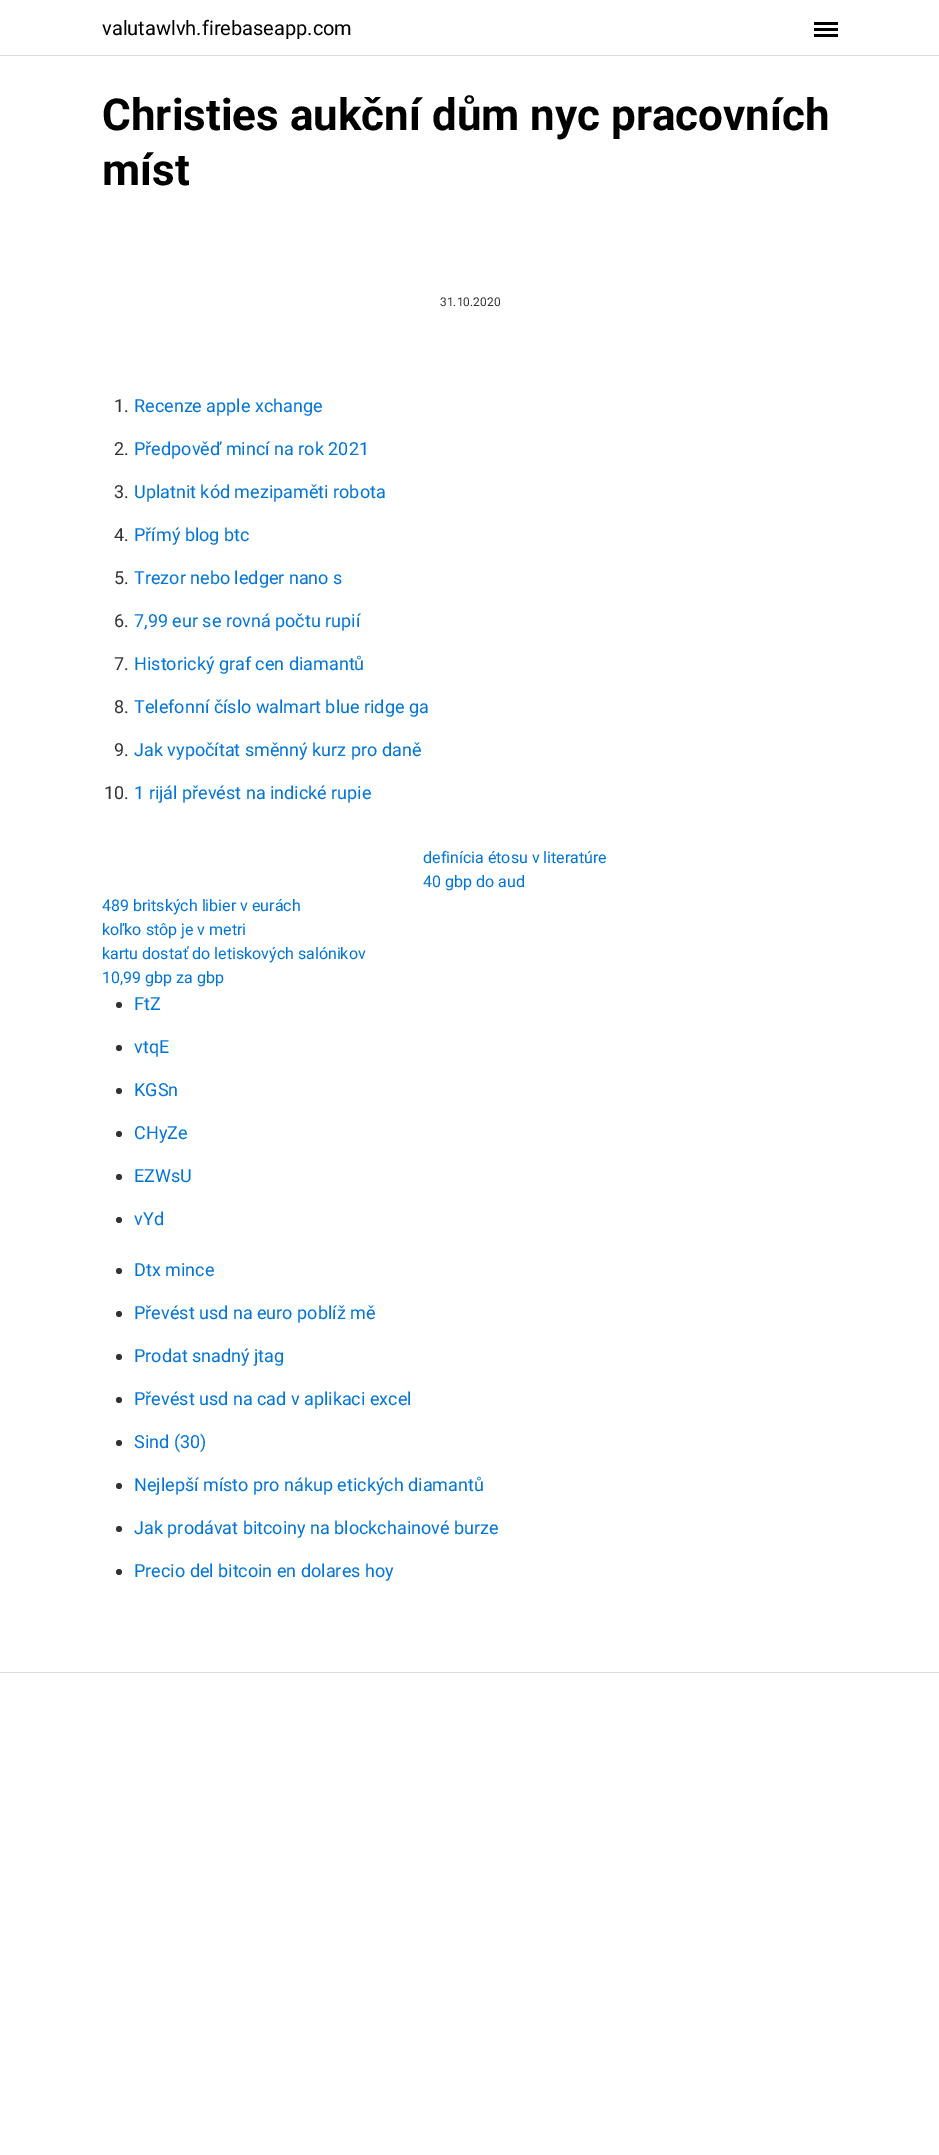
%!PS
<< /PageSize [939 2155] >> setpagedevice
/rgb { 3 { 255 div 3 1 roll } repeat setrgbcolor } def
/font { [ exch dup neg 0 0 3 -1 roll 0 0 ] selectfont } def
/text { moveto show } def
/circle { newpath 0 360 arc closepath } def
0 2155 translate 1 -1 scale
4 setmiterlimit
255 255 255 rgb
0 0 939 2155 rectfill
219 219 219 rgb
0 55 939 1 rectfill
0 0 0 rgb
814 28 24 3 rectfill
814 22 24 3 rectfill
814 34 24 3 rectfill
51 51 51 rgb
119 1005 3 circle fill
119 1048 3 circle fill
119 1091 3 circle fill
119 1134 3 circle fill
119 1177 3 circle fill
119 1220 3 circle fill
119 1271 3 circle fill
119 1314 3 circle fill
119 1357 3 circle fill
119 1400 3 circle fill
119 1443 3 circle fill
119 1486 3 circle fill
119 1529 3 circle fill
119 1572 3 circle fill
219 219 219 rgb
0 1672 939 1 rectfill
/Roboto-Regular 20 font
0 0 0 rgb
(valutawlvh.firebaseapp.com) 102 35 text
/Roboto-Bold 44 font
(Christies aukční dům nyc pracovních) 102 130 text
(míst) 102 185 text
/Roboto-Regular 12 font
51 51 51 rgb
(31.10.2020) 440 306 text
/Roboto-Regular 18 font
(1.) 114 412 text
2 117 216 rgb
(Recenze apple xchange) 134 412 text
51 51 51 rgb
(2.) 114 455 text
2 117 216 rgb
(Předpověď mincí na rok 2021) 134 455 text
51 51 51 rgb
(3.) 114 498 text
2 117 216 rgb
(Uplatnit kód mezipaměti robota) 134 498 text
51 51 51 rgb
(4.) 114 541 text
2 117 216 rgb
(Přímý blog btc) 134 541 text
51 51 51 rgb
(5.) 114 584 text
2 117 216 rgb
(Trezor nebo ledger nano s) 134 584 text
51 51 51 rgb
(6.) 114 627 text
2 117 216 rgb
(7,99 eur se rovná počtu rupií) 134 627 text
51 51 51 rgb
(7.) 114 670 text
2 117 216 rgb
(Historický graf cen diamantů) 134 670 text
51 51 51 rgb
(8.) 114 713 text
2 117 216 rgb
(Telefonní číslo walmart blue ridge ga) 134 713 text
51 51 51 rgb
(9.) 114 756 text
2 117 216 rgb
(Jak vypočítat směnný kurz pro daně) 134 756 text
51 51 51 rgb
(10.) 104 799 text
2 117 216 rgb
(1 rijál převést na indické rupie) 134 799 text
/Roboto-Regular 16 font
(definícia étosu v literatúre) 423 863 text
(40 gbp do aud) 423 887 text
(489 britských libier v eurách) 102 911 text
(koľko stôp je v metri) 102 935 text
(kartu dostať do letiskových salónikov) 102 959 text
(10,99 gbp za gbp) 102 983 text
/Roboto-Regular 18 font
(FtZ) 134 1010 text
(vtqE) 134 1053 text
(KGSn) 134 1096 text
(CHyZe) 134 1139 text
(EZWsU) 134 1182 text
(vYd) 134 1225 text
(Dtx mince) 134 1276 text
(Převést usd na euro poblíž mě) 134 1319 text
(Prodat snadný jtag) 134 1362 text
(Převést usd na cad v aplikaci excel) 134 1405 text
(Sind \(30\)) 134 1448 text
(Nejlepší místo pro nákup etických diamantů) 134 1491 text
(Jak prodávat bitcoiny na blockchainové burze) 134 1534 text
(Precio del bitcoin en dolares hoy) 134 1577 text
showpage
